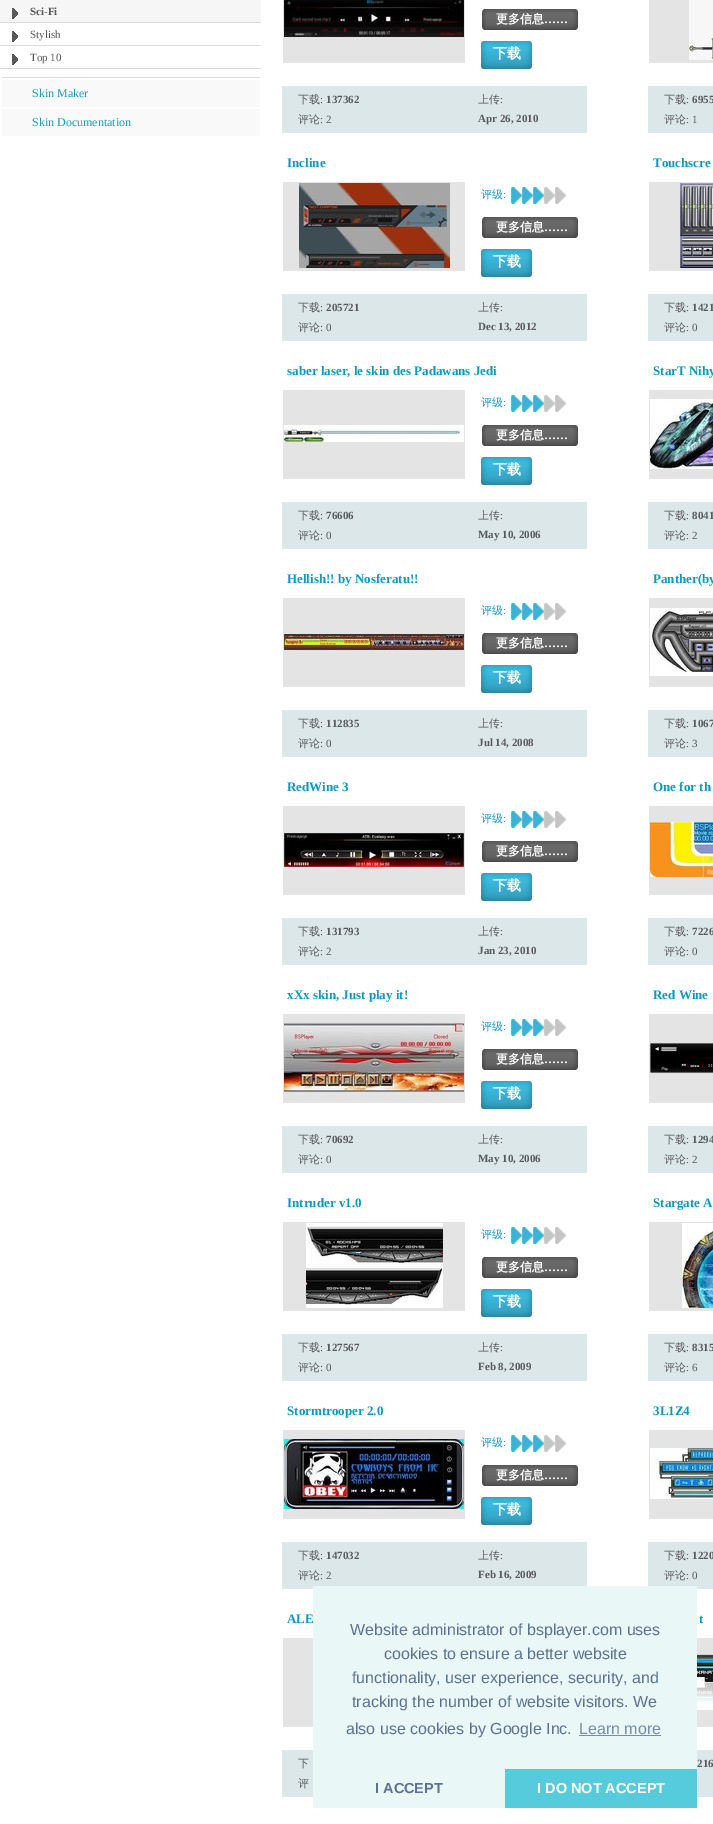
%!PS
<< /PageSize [713 1824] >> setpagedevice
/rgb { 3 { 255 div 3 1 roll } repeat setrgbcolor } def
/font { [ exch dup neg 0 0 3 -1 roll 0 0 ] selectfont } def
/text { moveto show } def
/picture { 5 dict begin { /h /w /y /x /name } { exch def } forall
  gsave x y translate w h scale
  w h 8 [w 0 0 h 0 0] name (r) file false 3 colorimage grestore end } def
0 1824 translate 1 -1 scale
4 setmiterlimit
255 255 255 rgb
0 0 713 1824 rectfill
246 246 246 rgb
0 0 261 22 rectfill
(img_01.rgb) 12 8 6 11 picture
219 219 219 rgb
0 22 261 1 rectfill
(img_02.rgb) 12 31 6 11 picture
0 45 261 1 rectfill
(img_02.rgb) 12 54 6 11 picture
0 68 261 1 rectfill
2 77 258 1 rectfill
249 249 249 rgb
2 80 258 27 rectfill
2 109 258 27 rectfill
228 228 228 rgb
283 0 182 63 rectfill
(img_03.rgb) 284 0 180 37 picture
(img_04.rgb) 482 9 4 21 picture
(img_05.rgb) 486 9 92 21 picture
(img_06.rgb) 481 41 6 28 picture
(img_07.rgb) 487 41 45 28 picture
220 231 234 rgb
282 86 305 47 rectfill
228 228 228 rgb
649 0 64 63 rectfill
(img_08.rgb) 689 0 24 60 picture
220 231 234 rgb
648 86 65 47 rectfill
228 228 228 rgb
283 182 182 89 rectfill
(img_09.rgb) 299 183 151 85 picture
(img_10.rgb) 511 187 11 17 picture
(img_10.rgb) 522 187 11 17 picture
(img_10.rgb) 533 187 11 17 picture
(img_11.rgb) 544 187 11 17 picture
(img_11.rgb) 555 187 11 17 picture
(img_04.rgb) 482 217 4 21 picture
(img_05.rgb) 486 217 92 21 picture
(img_06.rgb) 481 249 6 28 picture
(img_07.rgb) 487 249 45 28 picture
220 231 234 rgb
282 294 305 47 rectfill
228 228 228 rgb
649 182 64 89 rectfill
(img_12.rgb) 680 183 33 85 picture
220 231 234 rgb
648 294 65 47 rectfill
228 228 228 rgb
283 390 182 89 rectfill
(img_13.rgb) 284 425 180 17 picture
(img_10.rgb) 511 395 11 17 picture
(img_10.rgb) 522 395 11 17 picture
(img_10.rgb) 533 395 11 17 picture
(img_11.rgb) 544 395 11 17 picture
(img_11.rgb) 555 395 11 17 picture
(img_04.rgb) 482 425 4 21 picture
(img_05.rgb) 486 425 92 21 picture
(img_06.rgb) 481 457 6 28 picture
(img_07.rgb) 487 457 45 28 picture
220 231 234 rgb
282 502 305 47 rectfill
228 228 228 rgb
649 390 64 89 rectfill
(img_14.rgb) 650 399 63 70 picture
220 231 234 rgb
648 502 65 47 rectfill
228 228 228 rgb
283 598 182 89 rectfill
(img_15.rgb) 284 634 180 16 picture
(img_10.rgb) 511 603 11 17 picture
(img_10.rgb) 522 603 11 17 picture
(img_10.rgb) 533 603 11 17 picture
(img_11.rgb) 544 603 11 17 picture
(img_11.rgb) 555 603 11 17 picture
(img_04.rgb) 482 633 4 21 picture
(img_05.rgb) 486 633 92 21 picture
(img_06.rgb) 481 665 6 28 picture
(img_07.rgb) 487 665 45 28 picture
220 231 234 rgb
282 710 305 47 rectfill
228 228 228 rgb
649 598 64 89 rectfill
(img_16.rgb) 650 608 63 68 picture
220 231 234 rgb
648 710 65 47 rectfill
228 228 228 rgb
283 806 182 89 rectfill
(img_17.rgb) 284 833 180 34 picture
(img_10.rgb) 511 811 11 17 picture
(img_10.rgb) 522 811 11 17 picture
(img_10.rgb) 533 811 11 17 picture
(img_11.rgb) 544 811 11 17 picture
(img_11.rgb) 555 811 11 17 picture
(img_04.rgb) 482 841 4 21 picture
(img_05.rgb) 486 841 92 21 picture
(img_06.rgb) 481 873 6 28 picture
(img_07.rgb) 487 873 45 28 picture
220 231 234 rgb
282 918 305 47 rectfill
228 228 228 rgb
649 806 64 89 rectfill
(img_18.rgb) 650 822 63 55 picture
220 231 234 rgb
648 918 65 47 rectfill
228 228 228 rgb
283 1014 182 89 rectfill
(img_19.rgb) 284 1023 180 69 picture
(img_10.rgb) 511 1019 11 17 picture
(img_10.rgb) 522 1019 11 17 picture
(img_10.rgb) 533 1019 11 17 picture
(img_11.rgb) 544 1019 11 17 picture
(img_11.rgb) 555 1019 11 17 picture
(img_04.rgb) 482 1049 4 21 picture
(img_05.rgb) 486 1049 92 21 picture
(img_06.rgb) 481 1081 6 28 picture
(img_07.rgb) 487 1081 45 28 picture
220 231 234 rgb
282 1126 305 47 rectfill
228 228 228 rgb
649 1014 64 89 rectfill
(img_20.rgb) 650 1043 63 30 picture
220 231 234 rgb
648 1126 65 47 rectfill
228 228 228 rgb
283 1222 182 89 rectfill
(img_21.rgb) 306 1223 137 85 picture
(img_10.rgb) 511 1227 11 17 picture
(img_10.rgb) 522 1227 11 17 picture
(img_10.rgb) 533 1227 11 17 picture
(img_11.rgb) 544 1227 11 17 picture
(img_11.rgb) 555 1227 11 17 picture
(img_04.rgb) 482 1257 4 21 picture
(img_05.rgb) 486 1257 92 21 picture
(img_06.rgb) 481 1289 6 28 picture
(img_07.rgb) 487 1289 45 28 picture
220 231 234 rgb
282 1334 305 47 rectfill
228 228 228 rgb
649 1222 64 89 rectfill
(img_22.rgb) 682 1223 31 85 picture
220 231 234 rgb
648 1334 65 47 rectfill
228 228 228 rgb
283 1430 182 89 rectfill
(img_23.rgb) 284 1439 180 70 picture
(img_10.rgb) 511 1435 11 17 picture
(img_10.rgb) 522 1435 11 17 picture
(img_10.rgb) 533 1435 11 17 picture
(img_11.rgb) 544 1435 11 17 picture
(img_11.rgb) 555 1435 11 17 picture
(img_04.rgb) 482 1465 4 21 picture
(img_05.rgb) 486 1465 92 21 picture
(img_06.rgb) 481 1497 6 28 picture
(img_07.rgb) 487 1497 45 28 picture
220 231 234 rgb
282 1542 305 47 rectfill
228 228 228 rgb
649 1430 64 89 rectfill
(img_24.rgb) 650 1448 63 51 picture
220 231 234 rgb
648 1542 65 47 rectfill
228 228 228 rgb
283 1638 30 89 rectfill
220 231 234 rgb
282 1750 31 47 rectfill
228 228 228 rgb
697 1638 16 89 rectfill
(img_25.rgb) 697 1654 16 56 picture
220 231 234 rgb
697 1750 16 47 rectfill
/LiberationSerif-Bold 11 font
88 89 91 rgb
(Sci-Fi) 30 15 text
/LiberationSerif-Regular 11 font
(Stylish) 30 38 text
(Top 10) 30 61 text
/LiberationSerif-Regular 12 font
29 154 190 rgb
(Skin Maker) 32 97 text
(Skin Documentation) 32 126 text
/WenQuanYiZenHei-Bold 12 font
255 255 255 rgb
(更多信息) 496 23 text
/LiberationSerif-Bold 12 font
(……) 544 23 text
/WenQuanYiZenHei-Bold 14 font
(下载) 493 58 text
/WenQuanYiZenHei-Medium 11 font
88 89 91 rgb
(下载) 298 103 text
/LiberationSerif-Regular 11 font
(:) 320 103 text
/LiberationSerif-Bold 11 font
(137362) 326 103 text
/WenQuanYiZenHei-Medium 11 font
(评论) 298 123 text
/LiberationSerif-Regular 11 font
(: 2) 320 123 text
/WenQuanYiZenHei-Medium 11 font
(上传) 478 103 text
/LiberationSerif-Regular 11 font
(:) 500 103 text
/LiberationSerif-Bold 11 font
(Apr 26, 2010) 478 122 text
/WenQuanYiZenHei-Medium 11 font
(下载) 664 103 text
/LiberationSerif-Regular 11 font
(:) 686 103 text
/LiberationSerif-Bold 11 font
(6955) 692 103 text
/WenQuanYiZenHei-Medium 11 font
(评论) 664 123 text
/LiberationSerif-Regular 11 font
(: 1) 686 123 text
/LiberationSerif-Bold 13 font
1 155 199 rgb
(Incline) 287 167 text
/WenQuanYiZenHei-Medium 11 font
(评级) 481 198 text
/LiberationSerif-Regular 11 font
(:) 503 198 text
/WenQuanYiZenHei-Bold 12 font
255 255 255 rgb
(更多信息) 496 231 text
/LiberationSerif-Bold 12 font
(……) 544 231 text
/WenQuanYiZenHei-Bold 14 font
(下载) 493 266 text
/WenQuanYiZenHei-Medium 11 font
88 89 91 rgb
(下载) 298 311 text
/LiberationSerif-Regular 11 font
(:) 320 311 text
/LiberationSerif-Bold 11 font
(205721) 326 311 text
/WenQuanYiZenHei-Medium 11 font
(评论) 298 331 text
/LiberationSerif-Regular 11 font
(: 0) 320 331 text
/WenQuanYiZenHei-Medium 11 font
(上传) 478 311 text
/LiberationSerif-Regular 11 font
(:) 500 311 text
/LiberationSerif-Bold 11 font
(Dec 13, 2012) 478 330 text
/LiberationSerif-Bold 13 font
1 155 199 rgb
(Touchscre) 653 167 text
/WenQuanYiZenHei-Medium 11 font
88 89 91 rgb
(下载) 664 311 text
/LiberationSerif-Regular 11 font
(:) 686 311 text
/LiberationSerif-Bold 11 font
(1421) 692 311 text
/WenQuanYiZenHei-Medium 11 font
(评论) 664 331 text
/LiberationSerif-Regular 11 font
(: 0) 686 331 text
/LiberationSerif-Bold 13 font
1 155 199 rgb
(saber laser, le skin des Padawans Jedi) 287 375 text
/WenQuanYiZenHei-Medium 11 font
(评级) 481 406 text
/LiberationSerif-Regular 11 font
(:) 503 406 text
/WenQuanYiZenHei-Bold 12 font
255 255 255 rgb
(更多信息) 496 439 text
/LiberationSerif-Bold 12 font
(……) 544 439 text
/WenQuanYiZenHei-Bold 14 font
(下载) 493 474 text
/WenQuanYiZenHei-Medium 11 font
88 89 91 rgb
(下载) 298 519 text
/LiberationSerif-Regular 11 font
(:) 320 519 text
/LiberationSerif-Bold 11 font
(76606) 326 519 text
/WenQuanYiZenHei-Medium 11 font
(评论) 298 539 text
/LiberationSerif-Regular 11 font
(: 0) 320 539 text
/WenQuanYiZenHei-Medium 11 font
(上传) 478 519 text
/LiberationSerif-Regular 11 font
(:) 500 519 text
/LiberationSerif-Bold 11 font
(May 10, 2006) 478 538 text
/LiberationSerif-Bold 13 font
1 155 199 rgb
(StarT Nihy) 653 375 text
/WenQuanYiZenHei-Medium 11 font
88 89 91 rgb
(下载) 664 519 text
/LiberationSerif-Regular 11 font
(:) 686 519 text
/LiberationSerif-Bold 11 font
(8041) 692 519 text
/WenQuanYiZenHei-Medium 11 font
(评论) 664 539 text
/LiberationSerif-Regular 11 font
(: 2) 686 539 text
/LiberationSerif-Bold 13 font
1 155 199 rgb
(Hellish!! by Nosferatu!!) 287 583 text
/WenQuanYiZenHei-Medium 11 font
(评级) 481 614 text
/LiberationSerif-Regular 11 font
(:) 503 614 text
/WenQuanYiZenHei-Bold 12 font
255 255 255 rgb
(更多信息) 496 647 text
/LiberationSerif-Bold 12 font
(……) 544 647 text
/WenQuanYiZenHei-Bold 14 font
(下载) 493 682 text
/WenQuanYiZenHei-Medium 11 font
88 89 91 rgb
(下载) 298 727 text
/LiberationSerif-Regular 11 font
(:) 320 727 text
/LiberationSerif-Bold 11 font
(112835) 326 727 text
/WenQuanYiZenHei-Medium 11 font
(评论) 298 747 text
/LiberationSerif-Regular 11 font
(: 0) 320 747 text
/WenQuanYiZenHei-Medium 11 font
(上传) 478 727 text
/LiberationSerif-Regular 11 font
(:) 500 727 text
/LiberationSerif-Bold 11 font
(Jul 14, 2008) 478 746 text
/LiberationSerif-Bold 13 font
1 155 199 rgb
(Panther\(by) 653 583 text
/WenQuanYiZenHei-Medium 11 font
88 89 91 rgb
(下载) 664 727 text
/LiberationSerif-Regular 11 font
(:) 686 727 text
/LiberationSerif-Bold 11 font
(1067) 692 727 text
/WenQuanYiZenHei-Medium 11 font
(评论) 664 747 text
/LiberationSerif-Regular 11 font
(: 3) 686 747 text
/LiberationSerif-Bold 13 font
1 155 199 rgb
(RedWine 3) 287 791 text
/WenQuanYiZenHei-Medium 11 font
(评级) 481 822 text
/LiberationSerif-Regular 11 font
(:) 503 822 text
/WenQuanYiZenHei-Bold 12 font
255 255 255 rgb
(更多信息) 496 855 text
/LiberationSerif-Bold 12 font
(……) 544 855 text
/WenQuanYiZenHei-Bold 14 font
(下载) 493 890 text
/WenQuanYiZenHei-Medium 11 font
88 89 91 rgb
(下载) 298 935 text
/LiberationSerif-Regular 11 font
(:) 320 935 text
/LiberationSerif-Bold 11 font
(131793) 326 935 text
/WenQuanYiZenHei-Medium 11 font
(评论) 298 955 text
/LiberationSerif-Regular 11 font
(: 2) 320 955 text
/WenQuanYiZenHei-Medium 11 font
(上传) 478 935 text
/LiberationSerif-Regular 11 font
(:) 500 935 text
/LiberationSerif-Bold 11 font
(Jan 23, 2010) 478 954 text
/LiberationSerif-Bold 13 font
1 155 199 rgb
(One for th) 653 791 text
/WenQuanYiZenHei-Medium 11 font
88 89 91 rgb
(下载) 664 935 text
/LiberationSerif-Regular 11 font
(:) 686 935 text
/LiberationSerif-Bold 11 font
(7226) 692 935 text
/WenQuanYiZenHei-Medium 11 font
(评论) 664 955 text
/LiberationSerif-Regular 11 font
(: 0) 686 955 text
/LiberationSerif-Bold 13 font
1 155 199 rgb
(xXx skin, Just play it!) 287 999 text
/WenQuanYiZenHei-Medium 11 font
(评级) 481 1030 text
/LiberationSerif-Regular 11 font
(:) 503 1030 text
/WenQuanYiZenHei-Bold 12 font
255 255 255 rgb
(更多信息) 496 1063 text
/LiberationSerif-Bold 12 font
(……) 544 1063 text
/WenQuanYiZenHei-Bold 14 font
(下载) 493 1098 text
/WenQuanYiZenHei-Medium 11 font
88 89 91 rgb
(下载) 298 1143 text
/LiberationSerif-Regular 11 font
(:) 320 1143 text
/LiberationSerif-Bold 11 font
(70692) 326 1143 text
/WenQuanYiZenHei-Medium 11 font
(评论) 298 1163 text
/LiberationSerif-Regular 11 font
(: 0) 320 1163 text
/WenQuanYiZenHei-Medium 11 font
(上传) 478 1143 text
/LiberationSerif-Regular 11 font
(:) 500 1143 text
/LiberationSerif-Bold 11 font
(May 10, 2006) 478 1162 text
/LiberationSerif-Bold 13 font
1 155 199 rgb
(Red Wine) 653 999 text
/WenQuanYiZenHei-Medium 11 font
88 89 91 rgb
(下载) 664 1143 text
/LiberationSerif-Regular 11 font
(:) 686 1143 text
/LiberationSerif-Bold 11 font
(1294) 692 1143 text
/WenQuanYiZenHei-Medium 11 font
(评论) 664 1163 text
/LiberationSerif-Regular 11 font
(: 2) 686 1163 text
/LiberationSerif-Bold 13 font
1 155 199 rgb
(Intruder v1.0) 287 1207 text
/WenQuanYiZenHei-Medium 11 font
(评级) 481 1238 text
/LiberationSerif-Regular 11 font
(:) 503 1238 text
/WenQuanYiZenHei-Bold 12 font
255 255 255 rgb
(更多信息) 496 1271 text
/LiberationSerif-Bold 12 font
(……) 544 1271 text
/WenQuanYiZenHei-Bold 14 font
(下载) 493 1306 text
/WenQuanYiZenHei-Medium 11 font
88 89 91 rgb
(下载) 298 1351 text
/LiberationSerif-Regular 11 font
(:) 320 1351 text
/LiberationSerif-Bold 11 font
(127567) 326 1351 text
/WenQuanYiZenHei-Medium 11 font
(评论) 298 1371 text
/LiberationSerif-Regular 11 font
(: 0) 320 1371 text
/WenQuanYiZenHei-Medium 11 font
(上传) 478 1351 text
/LiberationSerif-Regular 11 font
(:) 500 1351 text
/LiberationSerif-Bold 11 font
(Feb 8, 2009) 478 1370 text
/LiberationSerif-Bold 13 font
1 155 199 rgb
(Stargate A) 653 1207 text
/WenQuanYiZenHei-Medium 11 font
88 89 91 rgb
(下载) 664 1351 text
/LiberationSerif-Regular 11 font
(:) 686 1351 text
/LiberationSerif-Bold 11 font
(8315) 692 1351 text
/WenQuanYiZenHei-Medium 11 font
(评论) 664 1371 text
/LiberationSerif-Regular 11 font
(: 6) 686 1371 text
/LiberationSerif-Bold 13 font
1 155 199 rgb
(Stormtrooper 2.0) 287 1415 text
/WenQuanYiZenHei-Medium 11 font
(评级) 481 1446 text
/LiberationSerif-Regular 11 font
(:) 503 1446 text
/WenQuanYiZenHei-Bold 12 font
255 255 255 rgb
(更多信息) 496 1479 text
/LiberationSerif-Bold 12 font
(……) 544 1479 text
/WenQuanYiZenHei-Bold 14 font
(下载) 493 1514 text
/WenQuanYiZenHei-Medium 11 font
88 89 91 rgb
(下载) 298 1559 text
/LiberationSerif-Regular 11 font
(:) 320 1559 text
/LiberationSerif-Bold 11 font
(147032) 326 1559 text
/WenQuanYiZenHei-Medium 11 font
(评论) 298 1579 text
/LiberationSerif-Regular 11 font
(: 2) 320 1579 text
/WenQuanYiZenHei-Medium 11 font
(上传) 478 1559 text
/LiberationSerif-Regular 11 font
(:) 500 1559 text
/LiberationSerif-Bold 11 font
(Feb 16, 2009) 478 1578 text
/LiberationSerif-Bold 13 font
1 155 199 rgb
(3L1Z4) 653 1415 text
/WenQuanYiZenHei-Medium 11 font
88 89 91 rgb
(下载) 664 1559 text
/LiberationSerif-Regular 11 font
(:) 686 1559 text
/LiberationSerif-Bold 11 font
(1220) 692 1559 text
/WenQuanYiZenHei-Medium 11 font
(评论) 664 1579 text
/LiberationSerif-Regular 11 font
(: 0) 686 1579 text
/LiberationSerif-Bold 13 font
1 155 199 rgb
(ALE) 287 1623 text
/WenQuanYiZenHei-Medium 11 font
88 89 91 rgb
(下) 298 1767 text
(评) 298 1787 text
/LiberationSerif-Bold 13 font
1 155 199 rgb
(t) 699 1623 text
/LiberationSerif-Bold 11 font
88 89 91 rgb
(216) 697 1767 text
234 247 247 rgb
313 1586 384 222 rectfill
/LiberationSans-Regular 16 font
92 114 145 rgb
(Website administrator of bsplayer.com uses) 350 1635 text
(cookies to ensure a better website) 384 1659 text
(functionality, user experience, security, and) 352 1683 text
(tracking the number of website visitors. We) 352 1707 text
(also use cookies by Google Inc.) 346 1734 text
120 141 165 rgb
(Learn more) 579 1734 text
579 1735 82 1 rectfill
/LiberationSans-Bold 14.5 font
92 114 145 rgb
(I ACCEPT) 375 1793 text
86 203 219 rgb
505 1769 192 39 rectfill
255 255 255 rgb
(I DO NOT ACCEPT) 537 1793 text
showpage
